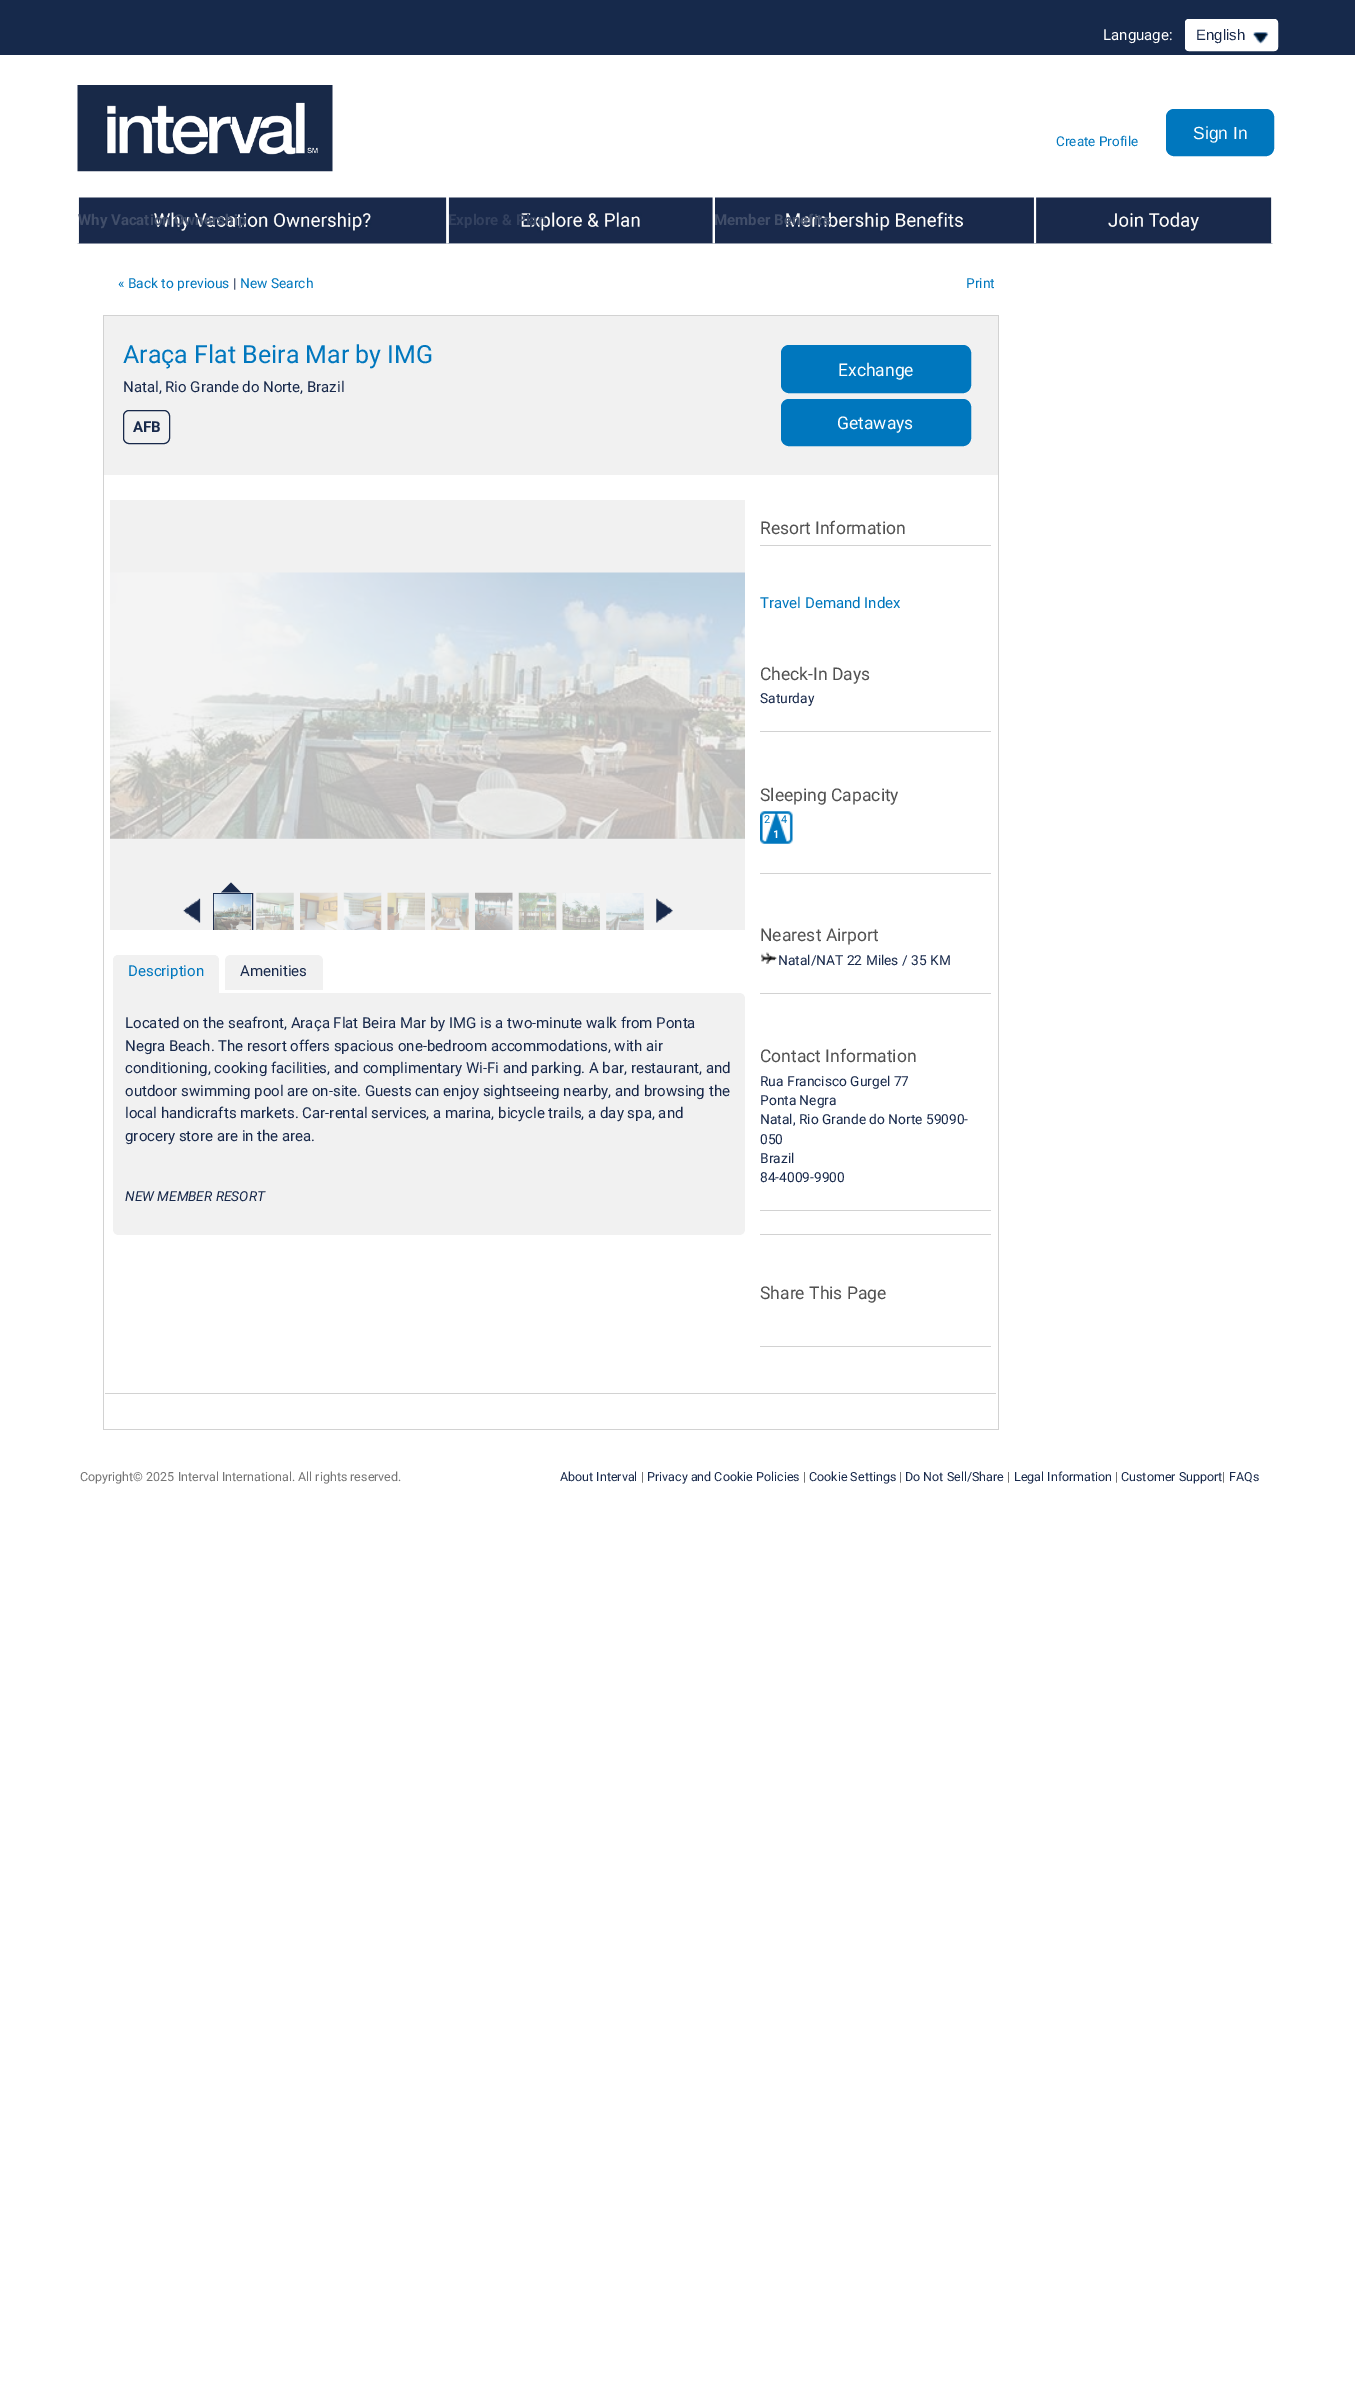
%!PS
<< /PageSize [1355 2404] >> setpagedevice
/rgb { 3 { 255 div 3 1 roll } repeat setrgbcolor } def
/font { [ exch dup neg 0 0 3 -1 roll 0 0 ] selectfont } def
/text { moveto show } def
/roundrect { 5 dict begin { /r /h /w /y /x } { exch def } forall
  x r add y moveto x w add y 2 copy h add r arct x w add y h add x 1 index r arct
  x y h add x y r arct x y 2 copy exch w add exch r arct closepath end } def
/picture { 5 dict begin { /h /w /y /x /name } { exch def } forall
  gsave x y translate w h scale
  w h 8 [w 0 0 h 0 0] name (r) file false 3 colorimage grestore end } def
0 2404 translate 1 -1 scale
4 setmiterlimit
255 255 255 rgb
0 0 1355 2404 rectfill
22 41 75 rgb
0 0 1355 55 rectfill
255 255 255 rgb
1185 19 93 32 4 roundrect fill
(img_01.rgb) 1252 32 17 12 picture
1185.5 19.5 92 31 3.5 roundrect stroke
(img_02.rgb) 77 85 256 87 picture
0 119 190 rgb
1166.5 109.5 107 46 7.5 roundrect gsave fill grestore
stroke
(img_03.rgb) 77 197 371 47 picture
(img_04.rgb) 447 197 267 47 picture
(img_05.rgb) 713 197 322 47 picture
(img_06.rgb) 1035 197 238 47 picture
210 210 210 rgb
103 315 896 1 rectfill
998 315 1 1115 rectfill
103 1429 896 1 rectfill
103 315 1 1115 rectfill
241 241 241 rgb
104 316 894 159 rectfill
24 41 75 rgb
123.5 410.5 46 33 5.5 roundrect stroke
0 119 190 rgb
781.5 345.5 189 47 7.5 roundrect gsave fill grestore
stroke
781.5 399.5 189 46 7.5 roundrect gsave fill grestore
stroke
241 241 241 rgb
110 500 635 430 rectfill
(img_07.rgb) 110 572 635 267 picture
24 41 75 rgb
241 892.5 moveto -20 0 rlineto 10 -10 rlineto closepath fill
(img_08.rgb) 183 898 18 25 picture
gsave
213 893 431 37 rectclip
213.5 893.5 39 39 rectstroke
grestore
(img_09.rgb) 213 893 39 37 picture
(img_10.rgb) 256 892 38 38 picture
(img_11.rgb) 300 892 38 38 picture
(img_12.rgb) 343 892 39 38 picture
(img_13.rgb) 387 892 38 38 picture
(img_14.rgb) 431 892 38 38 picture
(img_15.rgb) 475 892 38 38 picture
(img_16.rgb) 518 892 39 38 picture
(img_17.rgb) 562 893 38 37 picture
(img_18.rgb) 606 893 38 37 picture
(img_19.rgb) 656 898 17 25 picture
241 241 241 rgb
119 955 moveto 94 0 rlineto 3.5 0 6 2.5 6 6 rcurveto 0 32 rlineto -106 0 rlineto 0 -32 rlineto 0 -3.5 2.5 -6 6 -6 rcurveto closepath fill
119 955 moveto 94 0 rlineto 3.5 0 6 2.5 6 6 rcurveto 0 29 rlineto -106 0 rlineto 0 -29 rlineto 0 -3.5 2.5 -6 6 -6 rcurveto closepath fill
231 955 moveto 86 0 rlineto 3.5 0 6 2.5 6 6 rcurveto 0 29 rlineto -98 0 rlineto 0 -29 rlineto 0 -3.5 2.5 -6 6 -6 rcurveto closepath fill
113 993 moveto 626 0 rlineto 3.5 0 6 2.5 6 6 rcurveto 0 230 rlineto 0 3.5 -2.5 6 -6 6 rcurveto -620 0 rlineto -3.5 0 -6 -2.5 -6 -6 rcurveto closepath fill
210 210 210 rgb
760 545 231 1 rectfill
760 1234 231 1 rectfill
760 731 231 1 rectfill
760 873 231 1 rectfill
(img_20.rgb) 760 811 33 33 picture
760 993 231 1 rectfill
(img_21.rgb) 761 952 16 12 picture
760 1210 231 1 rectfill
760 1346 231 1 rectfill
105 1393 891 1 rectfill
/Roboto-Regular 15 font
255 255 255 rgb
(Language:) 1103 40 text
/LiberationSans-Regular 15 font
24 41 75 rgb
(English) 1196 40 text
/Roboto-Regular 13.5 font
0 119 190 rgb
(Create Profile) 1056 146 text
/LiberationSans-Regular 17.5 font
255 255 255 rgb
(Sign In) 1193 139 text
/Roboto-Bold 15 font
65 78 105 rgb
(Why Vacation Ownership) 78 225 text
51 65 95 rgb
(Explore & Plan) 448 225 text
65 78 105 rgb
(Member Benefits) 714 225 text
/Roboto-Regular 13.75 font
0 119 190 rgb
(« Back to previous) 118 288 text
24 41 75 rgb
(|) 233 288 text
0 119 190 rgb
(New Search) 240 288 text
(Print) 966 288 text
/Roboto-Regular 25 font
(Araça Flat Beira Mar by IMG) 123 363 text
/Roboto-Regular 15 font
24 41 75 rgb
(Natal, Rio Grande do Norte, Brazil) 123 392 text
/Roboto-Bold 15 font
(AFB) 133 432 text
/Roboto-Regular 17.5 font
255 255 255 rgb
(Exchange) 838 376 text
(Getaways) 837 429 text
/Roboto-Regular 15 font
0 119 190 rgb
(Description) 128 976 text
24 41 75 rgb
(Amenities) 240 976 text
(Located on the seafront, Araça Flat Beira Mar by IMG is a two-minute walk from Ponta) 125 1028 text
(Negra Beach. The resort offers spacious one-bedroom accommodations, with air) 125 1051 text
(conditioning, cooking facilities, and complimentary Wi-Fi and parking. A bar, restaurant, and) 125 1073 text
(outdoor swimming pool are on-site. Guests can enjoy sightseeing nearby, and browsing the) 125 1096 text
(local handicrafts markets. Car-rental services, a marina, bicycle trails, a day spa, and) 125 1118 text
(grocery store are in the area.) 125 1141 text
/Roboto-Italic 13.75 font
(NEW MEMBER RESORT) 125 1201 text
/Roboto-Regular 17.5 font
81 81 81 rgb
(Resort Information) 760 534 text
/Roboto-Regular 15 font
0 119 190 rgb
(Travel Demand Index) 760 608 text
/Roboto-Regular 17.5 font
81 81 81 rgb
(Check-In Days) 760 680 text
/Roboto-Regular 13.75 font
24 41 75 rgb
(Saturday) 760 703 text
/Roboto-Regular 17.5 font
81 81 81 rgb
(Sleeping Capacity) 760 801 text
/Roboto-Regular 11 font
0 119 190 rgb
764 823 moveto -1 0 (2) ashow
781 823 moveto -1 0 (4) ashow
/Roboto-Bold 11 font
255 255 255 rgb
(1) 773 838 text
/Roboto-Regular 17.5 font
81 81 81 rgb
(Nearest Airport) 760 941 text
/Roboto-Regular 13.75 font
24 41 75 rgb
(Natal/NAT 22 Miles / 35 KM) 778 965 text
/Roboto-Regular 17.5 font
81 81 81 rgb
(Contact Information) 760 1062 text
/Roboto-Regular 13.75 font
24 41 75 rgb
(Rua Francisco Gurgel 77) 760 1086 text
(Ponta Negra) 760 1105 text
(Natal, Rio Grande do Norte 59090-) 760 1124 text
(050) 760 1144 text
(Brazil) 760 1163 text
(84-4009-9900) 760 1182 text
/Roboto-Regular 17.5 font
81 81 81 rgb
(Share This Page) 760 1299 text
/Roboto-Regular 12.5 font
117 117 117 rgb
(Copyright© 2025 Interval International. All rights reserved.) 80 1481 text
24 41 75 rgb
(About Interval) 560 1481 text
117 117 117 rgb
(|) 641 1481 text
24 41 75 rgb
(Privacy and Cookie Policies) 647 1481 text
117 117 117 rgb
(|) 803 1481 text
24 41 75 rgb
(Cookie Settings) 809 1481 text
117 117 117 rgb
(|) 899 1481 text
24 41 75 rgb
(Do Not Sell/Share) 905 1481 text
117 117 117 rgb
(|) 1007 1481 text
24 41 75 rgb
(Legal Information) 1014 1481 text
117 117 117 rgb
(|) 1115 1481 text
24 41 75 rgb
(Customer Support) 1121 1481 text
117 117 117 rgb
(|) 1222 1481 text
24 41 75 rgb
(FAQs) 1229 1481 text
showpage
